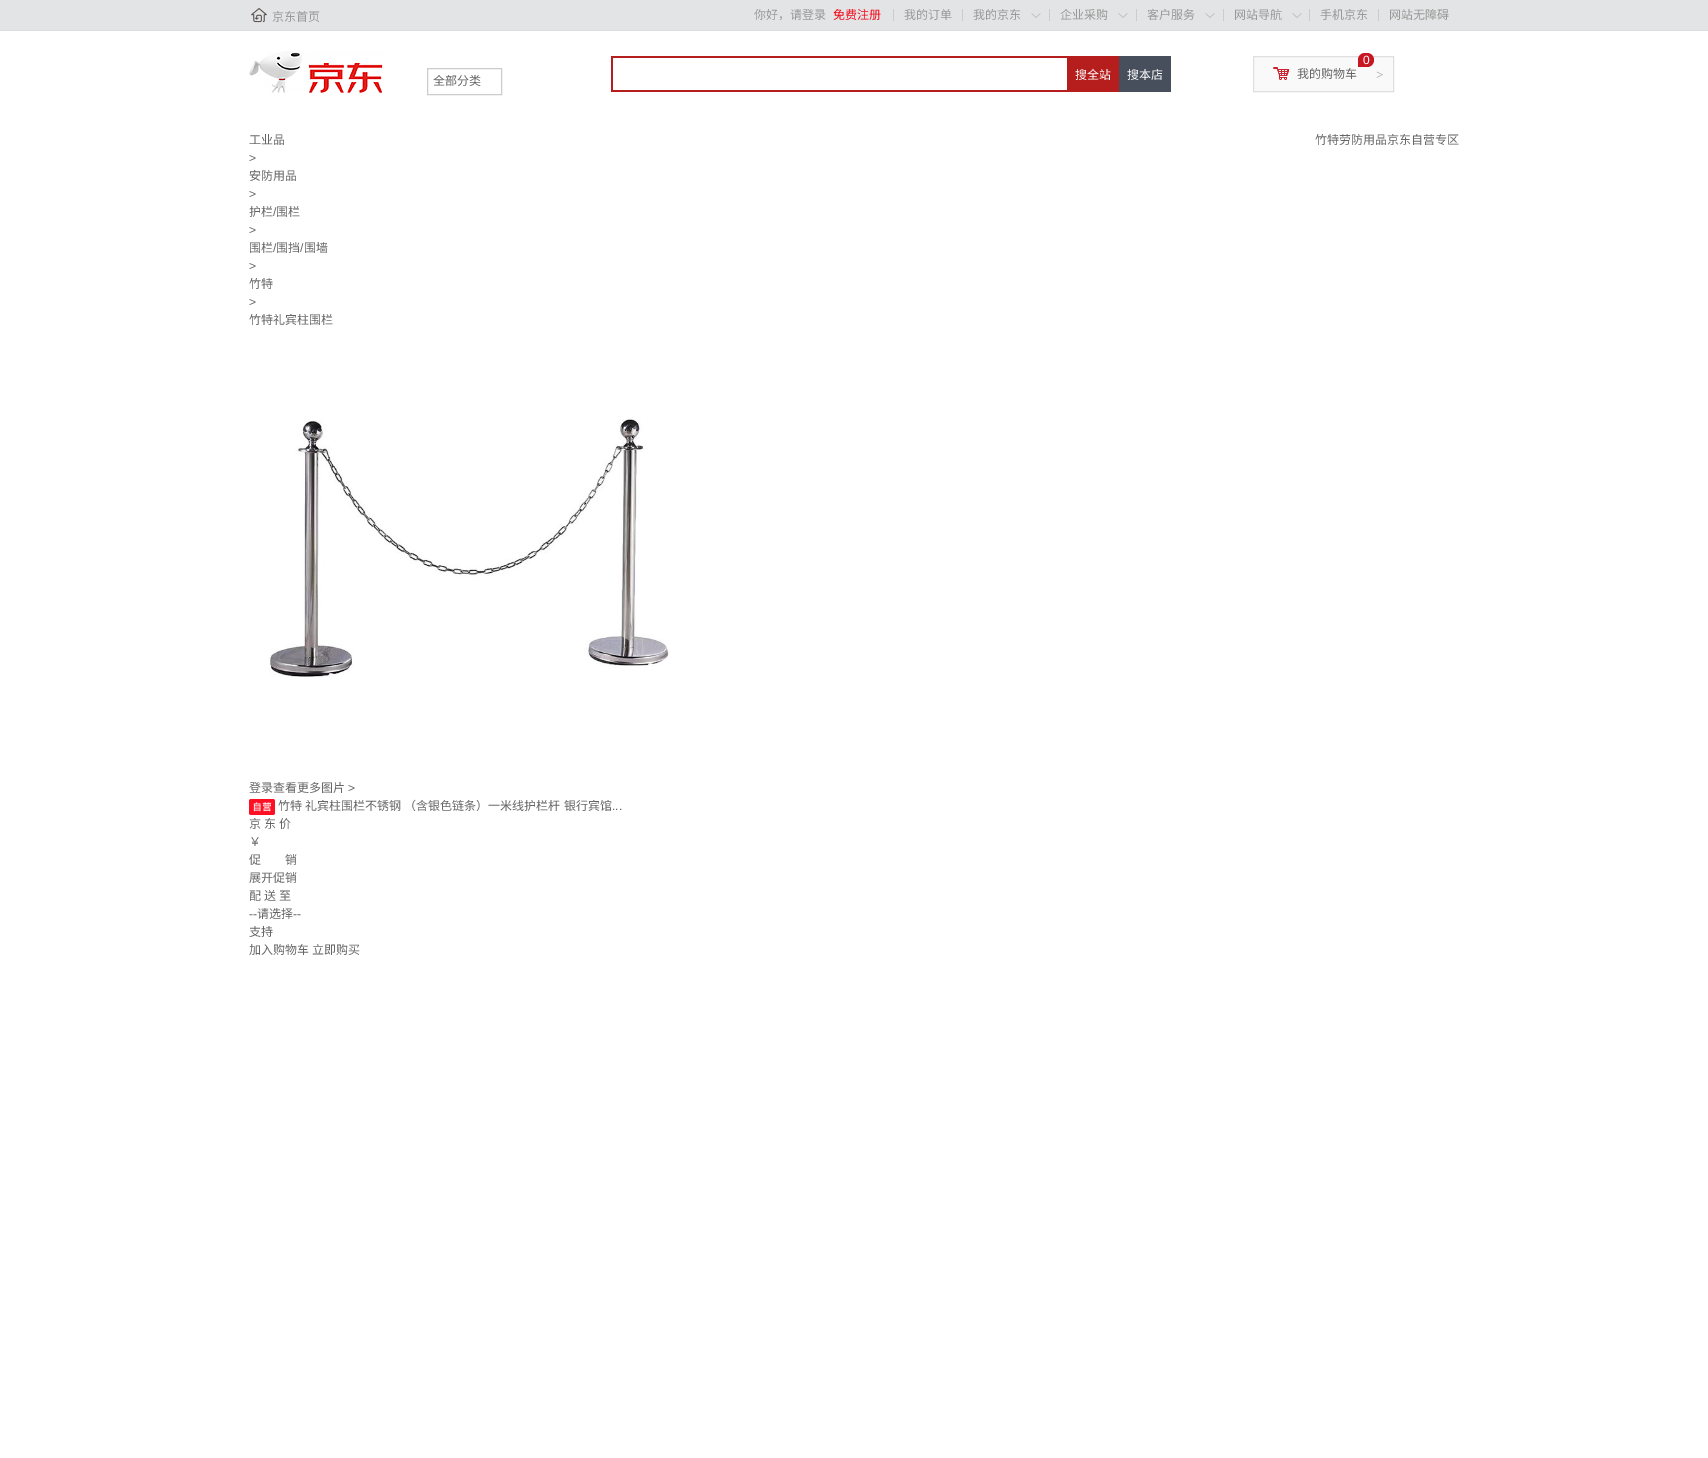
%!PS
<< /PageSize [1708 1458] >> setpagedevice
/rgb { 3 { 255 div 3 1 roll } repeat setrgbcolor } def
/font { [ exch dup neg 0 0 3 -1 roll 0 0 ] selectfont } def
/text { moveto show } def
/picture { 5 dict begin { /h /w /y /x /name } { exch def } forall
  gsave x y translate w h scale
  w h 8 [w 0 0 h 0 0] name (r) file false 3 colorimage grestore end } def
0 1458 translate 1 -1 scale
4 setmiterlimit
255 255 255 rgb
0 0 1708 1458 rectfill
227 228 229 rgb
0 0 1708 30 rectfill
221 221 221 rgb
0 30 1708 1 rectfill
(img_01.rgb) 251 8 16 15 picture
204 204 204 rgb
893 9 1 12 rectfill
962 9 1 12 rectfill
(img_02.rgb) 1031 13 10 5 picture
1049 9 1 12 rectfill
(img_02.rgb) 1118 13 10 5 picture
1136 9 1 12 rectfill
(img_02.rgb) 1205 13 10 5 picture
1223 9 1 12 rectfill
(img_02.rgb) 1292 13 10 5 picture
1309 9 1 12 rectfill
1378 9 1 12 rectfill
(img_03.rgb) 249 51 134 42 picture
427.5 68.5 74 26 rectstroke
182 29 29 rgb
611 56 456 2 rectfill
611 90 456 2 rectfill
611 56 2 36 rectfill
1067 56 52 36 rectfill
71 78 92 rgb
1119 56 52 36 rectfill
249 249 249 rgb
1253.5 56.5 moveto 140 0 rlineto 0 35 rlineto -140 0 rlineto closepath gsave fill grestore
223 223 223 rgb
stroke
200 22 35 rgb
1365 53 moveto 2 0 rlineto 4 0 7 3 7 7 rcurveto 0 4 -3 7 -7 7 rcurveto -9 0 rlineto 0 -7 rlineto 0 -4 3 -7 7 -7 rcurveto closepath fill
(img_04.rgb) 1273 67 16 13 picture
(img_05.rgb) 269 419 400 259 picture
(img_06.rgb) 249 799 26 16 picture
/NotoSansCJKSC-Regular 12 font
153 153 153 rgb
(京东首页) 272 21 text
(你好，请登录) 754 19 text
243 2 19 rgb
(免费注册) 833 19 text
153 153 153 rgb
(我的订单) 904 19 text
(我的京东) 973 19 text
(企业采购) 1060 19 text
(客户服务) 1147 19 text
(网站导航) 1234 19 text
(手机京东) 1320 19 text
(网站无障碍) 1389 19 text
102 102 102 rgb
(全部分类) 433 85 text
255 255 255 rgb
(搜全站) 1075 79 text
(搜本店) 1127 79 text
/LiberationSans-Regular 12 font
(0) 1363 64 text
/NotoSansCJKSC-Regular 12 font
102 102 102 rgb
(我的购物车) 1297 78 text
/LiberationSerif-Regular 13 font
153 153 153 rgb
(>) 1376 79 text
/NotoSansCJKSC-Regular 12 font
102 102 102 rgb
(工业品) 249 144 text
/LiberationSans-Regular 12 font
(>) 249 162 text
/NotoSansCJKSC-Regular 12 font
(安防用品) 249 180 text
/LiberationSans-Regular 12 font
(>) 249 198 text
/NotoSansCJKSC-Regular 12 font
(护栏) 249 216 text
/LiberationSans-Regular 12 font
(/) 273 216 text
/NotoSansCJKSC-Regular 12 font
(围栏) 276 216 text
/LiberationSans-Regular 12 font
(>) 249 234 text
/NotoSansCJKSC-Regular 12 font
(围栏) 249 252 text
/LiberationSans-Regular 12 font
(/) 273 252 text
/NotoSansCJKSC-Regular 12 font
(围挡) 276 252 text
/LiberationSans-Regular 12 font
(/) 300 252 text
/NotoSansCJKSC-Regular 12 font
(围墙) 304 252 text
/LiberationSans-Regular 12 font
(>) 249 270 text
/NotoSansCJKSC-Regular 12 font
(竹特) 249 288 text
/LiberationSans-Regular 12 font
(>) 249 306 text
/NotoSansCJKSC-Regular 12 font
(竹特礼宾柱围栏) 249 324 text
(竹特劳防用品京东自营专区) 1315 144 text
(登录查看更多图片) 249 792 text
/LiberationSans-Regular 12 font
(>) 348 792 text
/NotoSansCJKSC-Regular 12 font
278 810 moveto 0.5 0 32 (竹特 礼宾柱围栏不锈钢 （含银色链条）一米线护栏杆 银行宾馆) widthshow
/LiberationSans-Regular 12 font
(...) 612 810 text
/NotoSansCJKSC-Regular 12 font
249 828 moveto 0.5 0 32 (京 东 价) widthshow
(￥) 249 846 text
(促　　销) 249 864 text
(展开促销) 249 882 text
249 900 moveto 0.5 0 32 (配 送 至) widthshow
/LiberationSans-Regular 12 font
(--) 249 918 text
/NotoSansCJKSC-Regular 12 font
(请选择) 257 918 text
/LiberationSans-Regular 12 font
(--) 293 918 text
/NotoSansCJKSC-Regular 12 font
(支持) 249 936 text
(加入购物车) 249 954 text
(立即购买) 312 954 text
showpage
